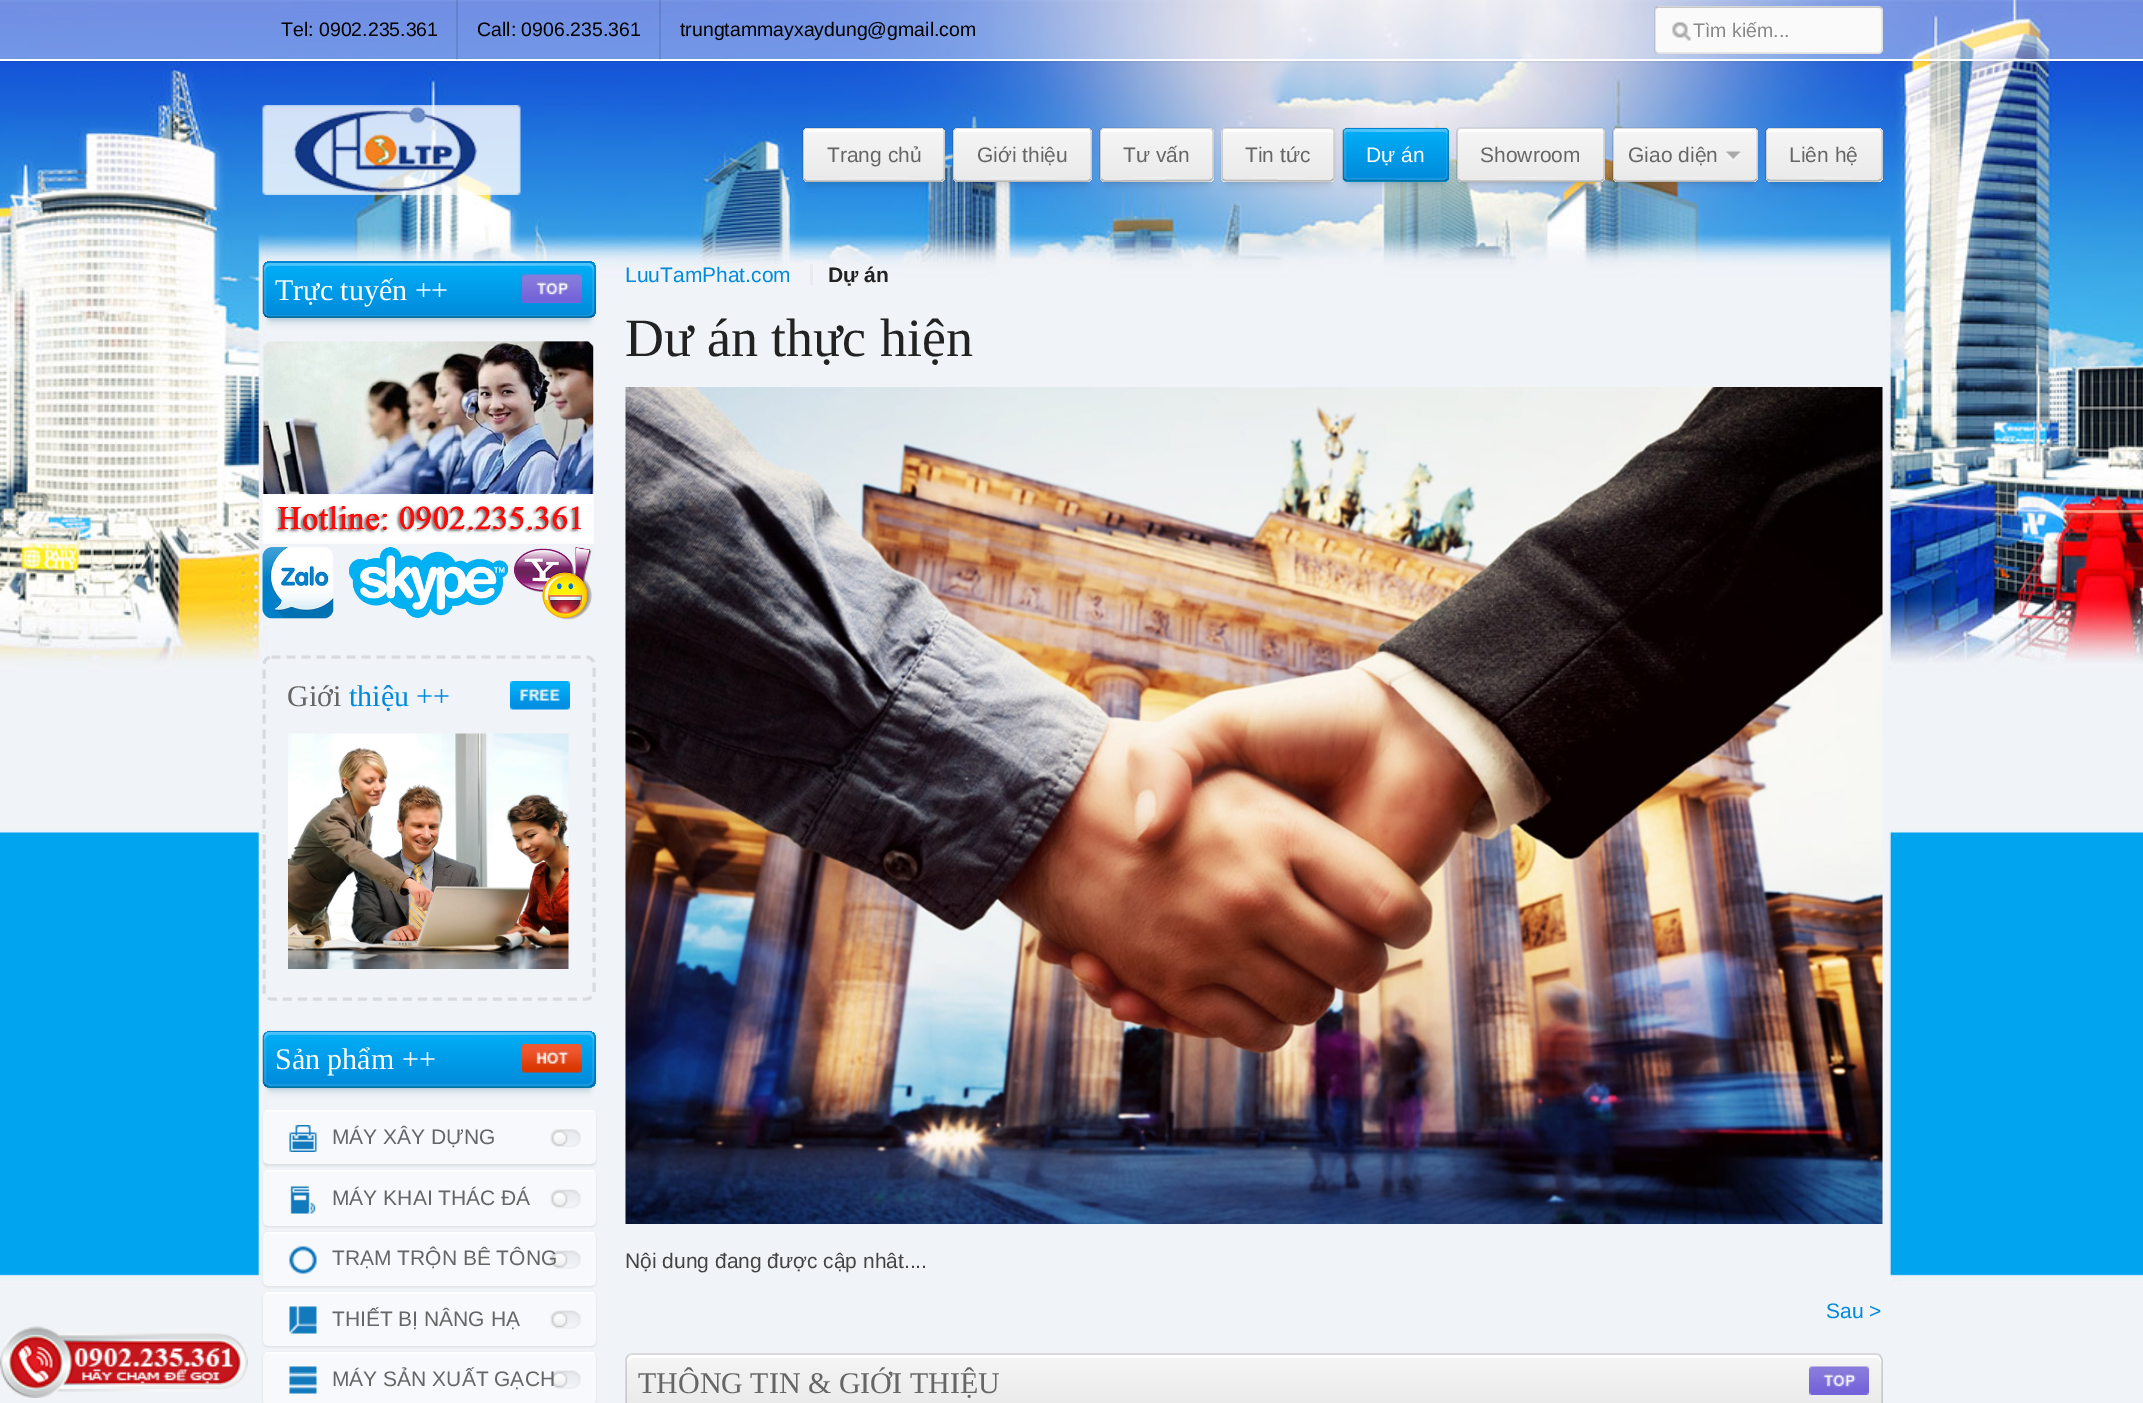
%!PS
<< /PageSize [2143 1403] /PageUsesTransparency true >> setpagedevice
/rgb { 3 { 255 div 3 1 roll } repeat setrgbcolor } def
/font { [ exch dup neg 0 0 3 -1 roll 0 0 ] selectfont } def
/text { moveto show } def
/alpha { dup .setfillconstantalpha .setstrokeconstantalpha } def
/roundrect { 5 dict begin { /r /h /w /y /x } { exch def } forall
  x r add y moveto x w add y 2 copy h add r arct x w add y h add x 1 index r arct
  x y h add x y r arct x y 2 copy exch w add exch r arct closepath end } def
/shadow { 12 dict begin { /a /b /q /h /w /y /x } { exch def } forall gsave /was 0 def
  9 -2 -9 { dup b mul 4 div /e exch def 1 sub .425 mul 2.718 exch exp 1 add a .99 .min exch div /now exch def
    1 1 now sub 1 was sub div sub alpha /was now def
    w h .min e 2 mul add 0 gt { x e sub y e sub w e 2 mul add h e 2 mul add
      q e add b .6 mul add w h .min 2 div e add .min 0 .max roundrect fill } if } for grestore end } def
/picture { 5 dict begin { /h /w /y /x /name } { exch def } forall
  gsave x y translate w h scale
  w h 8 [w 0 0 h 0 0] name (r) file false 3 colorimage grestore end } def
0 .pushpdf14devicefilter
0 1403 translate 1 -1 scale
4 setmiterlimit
255 255 255 rgb
0 0 2143 1403 rectfill
(img_02.rgb) 0 0 2143 1403 picture
(img_01.rgb) 0 1326 248 72 picture
gsave
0 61 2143 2 rectclip
0 0 0 rgb
0 2 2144 60 0 2 0.06 shadow
grestore
0.4 alpha
0 0 2143 59 rectfill
1 alpha
0 59 2143 2 rectfill
0.1 alpha
0 0 0 rgb
456 0 2 60 rectfill
659 0 2 60 rectfill
1 alpha
250 250 250 rgb
1655 6 228 48 5 roundrect fill
(img_03.rgb) 1672 22 19 19 picture
0.2 alpha
0 0 0 rgb
1.5 setlinewidth
1656.5 8 moveto 0.5 -1 1.5 -1 2.5 -1 rcurveto 219 0 rlineto 1 0 2 0 2.5 1 rcurveto stroke
0.1 alpha
1880.5 8 moveto 1 0.5 1.5 1.5 1.5 2.5 rcurveto 0 39 rlineto 0 1 -0.5 2 -1.5 2.5 rcurveto -0.5 1 -1.5 1 -2.5 1 rcurveto -219 0 rlineto -1 0 -2 0 -2.5 -1 rcurveto -1 -0.5 -1.5 -1.5 -1.5 -2.5 rcurveto 0 -39 rlineto 0 -1 0.5 -2 1.5 -2.5 rcurveto stroke
1 alpha
(img_04.rgb) 262 105 259 90 picture
809 144 130 42 0 3 0.08 shadow
803 129 142 54 5 1 0.05 shadow
gsave
803 128 142 54 5 roundrect clip newpath
gsave 803 128 moveto 142 0 rlineto 0 1 rlineto -142 0 rlineto closepath clip newpath
<< /ShadingType 2 /ColorSpace /DeviceRGB /Coords [874 78 874 129] /Extend [true true] /Function << /FunctionType 2 /Domain [0 1] /C0 [0.965 0.965 0.965] /C1 [0.918 0.918 0.918] /N 1 >> >> shfill grestore
gsave 803 129 moveto 142 0 rlineto 0 51 rlineto -142 0 rlineto closepath clip newpath
<< /ShadingType 2 /ColorSpace /DeviceRGB /Coords [874 129 874 180] /Extend [true true] /Function << /FunctionType 2 /Domain [0 1] /C0 [0.965 0.965 0.965] /C1 [0.918 0.918 0.918] /N 1 >> >> shfill grestore
gsave 803 180 moveto 142 0 rlineto 0 2 rlineto -142 0 rlineto closepath clip newpath
<< /ShadingType 2 /ColorSpace /DeviceRGB /Coords [874 180 874 231] /Extend [true true] /Function << /FunctionType 2 /Domain [0 1] /C0 [0.965 0.965 0.965] /C1 [0.918 0.918 0.918] /N 1 >> >> shfill grestore
grestore
254 254 254 rgb
807 132 moveto 133 0 rlineto 2 0 4 1 4 3 rcurveto 0 -3 rlineto 0 -2 -1 -3 -3 -3 rcurveto -134 0 rlineto -2 0 -3 1 -3 3 rcurveto 0 3 rlineto 0 -2 1 -3 3 -3 rcurveto closepath fill
0.08 alpha
0 0 0 rgb
804.5 129.5 moveto 0.5 -1 1.5 -1.5 2.5 -1.5 rcurveto 133.5 0 rlineto 1 0 2 0.5 2.5 1.5 rcurveto stroke
0.15 alpha
943 129.5 moveto 1 0.5 1 1.5 1 2.5 rcurveto 0 45 rlineto 0 1 0 2 -1 2.5 rcurveto stroke
0.25 alpha
943 179.5 moveto -0.5 1 -1.5 1.5 -2.5 1.5 rcurveto -133.5 0 rlineto -1 0 -2 -0.5 -2.5 -1.5 rcurveto stroke
0.15 alpha
804.5 179.5 moveto -1 -0.5 -1.5 -1.5 -1.5 -2.5 rcurveto 0 -45 rlineto 0 -1 0.5 -2 1.5 -2.5 rcurveto stroke
1 alpha
(img_05.rgb) 841 177 67 1 picture
959 144 127 42 0 3 0.08 shadow
953 129 139 54 5 1 0.05 shadow
gsave
953 128 139 54 5 roundrect clip newpath
gsave 953 128 moveto 139 0 rlineto 0 1 rlineto -139 0 rlineto closepath clip newpath
<< /ShadingType 2 /ColorSpace /DeviceRGB /Coords [1022 78 1022 129] /Extend [true true] /Function << /FunctionType 2 /Domain [0 1] /C0 [0.965 0.965 0.965] /C1 [0.918 0.918 0.918] /N 1 >> >> shfill grestore
gsave 953 129 moveto 139 0 rlineto 0 51 rlineto -139 0 rlineto closepath clip newpath
<< /ShadingType 2 /ColorSpace /DeviceRGB /Coords [1022 129 1022 180] /Extend [true true] /Function << /FunctionType 2 /Domain [0 1] /C0 [0.965 0.965 0.965] /C1 [0.918 0.918 0.918] /N 1 >> >> shfill grestore
gsave 953 180 moveto 139 0 rlineto 0 2 rlineto -139 0 rlineto closepath clip newpath
<< /ShadingType 2 /ColorSpace /DeviceRGB /Coords [1022 180 1022 231] /Extend [true true] /Function << /FunctionType 2 /Domain [0 1] /C0 [0.965 0.965 0.965] /C1 [0.918 0.918 0.918] /N 1 >> >> shfill grestore
grestore
0.85 alpha
255 255 255 rgb
957 132 moveto 131 0 rlineto 1 0 2 1 2 3 rcurveto 0 44 rlineto 1 0 1 -1 1 -2 rcurveto 0 -45 rlineto 0 -2 -1 -3 -3 -3 rcurveto -131 0 rlineto -2 0 -3 1 -3 3 rcurveto 0 3 rlineto 0 -2 1 -3 3 -3 rcurveto closepath fill
0.08 alpha
0 0 0 rgb
954.5 129.5 moveto 0.5 -1 1.5 -1.5 2.5 -1.5 rcurveto 130.5 0 rlineto 1 0 2 0.5 2.5 1.5 rcurveto stroke
0.15 alpha
1090 129.5 moveto 1 0.5 1 1.5 1 2.5 rcurveto 0 45 rlineto 0 1 0 2 -1 2.5 rcurveto stroke
0.25 alpha
1090 179.5 moveto -0.5 1 -1.5 1.5 -2.5 1.5 rcurveto -130.5 0 rlineto -1 0 -2 -0.5 -2.5 -1.5 rcurveto stroke
0.15 alpha
954.5 179.5 moveto -1 -0.5 -1.5 -1.5 -1.5 -2.5 rcurveto 0 -45 rlineto 0 -1 0.5 -2 1.5 -2.5 rcurveto stroke
1 alpha
(img_06.rgb) 991 177 64 1 picture
1106 144 102 42 0 3 0.08 shadow
1100 129 114 54 5 1 0.05 shadow
gsave
1100 128 114 54 5 roundrect clip newpath
gsave 1100 128 moveto 114 0 rlineto 0 1 rlineto -114 0 rlineto closepath clip newpath
<< /ShadingType 2 /ColorSpace /DeviceRGB /Coords [1157 78 1157 129] /Extend [true true] /Function << /FunctionType 2 /Domain [0 1] /C0 [0.965 0.965 0.965] /C1 [0.918 0.918 0.918] /N 1 >> >> shfill grestore
gsave 1100 129 moveto 114 0 rlineto 0 51 rlineto -114 0 rlineto closepath clip newpath
<< /ShadingType 2 /ColorSpace /DeviceRGB /Coords [1157 129 1157 180] /Extend [true true] /Function << /FunctionType 2 /Domain [0 1] /C0 [0.965 0.965 0.965] /C1 [0.918 0.918 0.918] /N 1 >> >> shfill grestore
gsave 1100 180 moveto 114 0 rlineto 0 2 rlineto -114 0 rlineto closepath clip newpath
<< /ShadingType 2 /ColorSpace /DeviceRGB /Coords [1157 180 1157 231] /Extend [true true] /Function << /FunctionType 2 /Domain [0 1] /C0 [0.965 0.965 0.965] /C1 [0.918 0.918 0.918] /N 1 >> >> shfill grestore
grestore
254 254 254 rgb
1104 132 moveto 105 0 rlineto 2 0 3 1 3 3 rcurveto 0 -3 rlineto 0 -2 -1 -3 -3 -3 rcurveto -105 0 rlineto -2 0 -3 1 -3 3 rcurveto 0 3 rlineto 0 -2 1 -3 3 -3 rcurveto closepath fill
0.08 alpha
0 0 0 rgb
1101.5 129.5 moveto 2.5 -1.5 rlineto 105.5 0.5 rlineto 2 1 rlineto stroke
0.15 alpha
1211.5 129.5 moveto 1 0.5 1.5 1.5 1.5 2.5 rcurveto 0 45 rlineto 0 1 -0.5 2 -1.5 2.5 rcurveto stroke
0.25 alpha
1211.5 179.5 moveto -2 1 rlineto -88 0.5 rlineto -17.5 0 rlineto -2.5 -1.5 rlineto stroke
0.15 alpha
1101.5 179.5 moveto -1 -0.5 -1.5 -1.5 -1.5 -2.5 rcurveto 0 -45 rlineto 0 -1 0.5 -2 1.5 -2.5 rcurveto stroke
1 alpha
(img_07.rgb) 1131 177 52 1 picture
1227 144 102 42 0 3 0.08 shadow
1221 129 114 54 5 1 0.05 shadow
gsave
1221 128 114 54 5 roundrect clip newpath
gsave 1221 128 moveto 114 0 rlineto 0 1 rlineto -114 0 rlineto closepath clip newpath
<< /ShadingType 2 /ColorSpace /DeviceRGB /Coords [1278 78 1278 129] /Extend [true true] /Function << /FunctionType 2 /Domain [0 1] /C0 [0.965 0.965 0.965] /C1 [0.918 0.918 0.918] /N 1 >> >> shfill grestore
gsave 1221 129 moveto 114 0 rlineto 0 51 rlineto -114 0 rlineto closepath clip newpath
<< /ShadingType 2 /ColorSpace /DeviceRGB /Coords [1278 129 1278 180] /Extend [true true] /Function << /FunctionType 2 /Domain [0 1] /C0 [0.965 0.965 0.965] /C1 [0.918 0.918 0.918] /N 1 >> >> shfill grestore
gsave 1221 180 moveto 114 0 rlineto 0 2 rlineto -114 0 rlineto closepath clip newpath
<< /ShadingType 2 /ColorSpace /DeviceRGB /Coords [1278 180 1278 231] /Extend [true true] /Function << /FunctionType 2 /Domain [0 1] /C0 [0.965 0.965 0.965] /C1 [0.918 0.918 0.918] /N 1 >> >> shfill grestore
grestore
254 254 254 rgb
1226 132 moveto 104 0 rlineto 2 0 4 1 4 3 rcurveto 0 -3 rlineto 0 -2 -1 -3 -3 -3 rcurveto -105 0 rlineto -2 0 -3 1 -3 3 rcurveto 0 1 rlineto closepath fill
0.08 alpha
0 0 0 rgb
1223 129.5 moveto 2.5 -1.5 rlineto 105.5 0.5 rlineto 2 1 rlineto stroke
0.15 alpha
1333 129.5 moveto 1 0.5 1 1.5 1 2.5 rcurveto 0 45 rlineto 0 1 0 2 -1 2.5 rcurveto stroke
0.25 alpha
1333 179.5 moveto -2.5 1.5 rlineto -105.5 -0.5 rlineto -2 -1 rlineto stroke
0.15 alpha
1223 179.5 moveto -1 -0.5 -1 -1.5 -1 -2.5 rcurveto 0 -45 rlineto 0 -1 0 -2 1 -2.5 rcurveto stroke
1 alpha
(img_08.rgb) 1252 177 53 1 picture
0 61 104 rgb
1349 144 94 42 0 3 0.15 shadow
1343 129 106 54 5 1 0.1 shadow
gsave
1343 128 106 54 5 roundrect clip newpath
gsave 1343 128 moveto 106 0 rlineto 0 1 rlineto -106 0 rlineto closepath clip newpath
<< /ShadingType 2 /ColorSpace /DeviceRGB /Coords [1396 78 1396 129] /Extend [true true] /Function << /FunctionType 2 /Domain [0 1] /C0 [0 0.686 0.973] /C1 [0 0.541 0.855] /N 1 >> >> shfill grestore
gsave 1343 129 moveto 106 0 rlineto 0 51 rlineto -106 0 rlineto closepath clip newpath
<< /ShadingType 2 /ColorSpace /DeviceRGB /Coords [1396 129 1396 180] /Extend [true true] /Function << /FunctionType 2 /Domain [0 1] /C0 [0 0.686 0.973] /C1 [0 0.541 0.855] /N 1 >> >> shfill grestore
gsave 1343 180 moveto 106 0 rlineto 0 2 rlineto -106 0 rlineto closepath clip newpath
<< /ShadingType 2 /ColorSpace /DeviceRGB /Coords [1396 180 1396 231] /Extend [true true] /Function << /FunctionType 2 /Domain [0 1] /C0 [0 0.686 0.973] /C1 [0 0.541 0.855] /N 1 >> >> shfill grestore
grestore
0.2 alpha
122 206 255 rgb
2 setlinewidth
1345 130 102 49 2 roundrect stroke
0.3 alpha
192 226 255 rgb
1347 132 moveto 97 0 rlineto 2 0 4 1 4 3 rcurveto 0 -3 rlineto 0 -2 -1 -3 -3 -3 rcurveto -98 0 rlineto -2 0 -3 1 -3 3 rcurveto 0 3 rlineto 0 -2 1 -3 3 -3 rcurveto closepath fill
0.05 alpha
0 0 0 rgb
1.5 setlinewidth
1344.5 129.5 moveto 2 -1 rlineto 81.5 -0.5 rlineto 16.5 0 rlineto 2.5 1.5 rlineto stroke
0.2 alpha
1447 129.5 moveto 1 0.5 1 1.5 1 2.5 rcurveto 0 45 rlineto 0 1 0 2 -1 2.5 rcurveto stroke
0.35 alpha
1447 179.5 moveto -2.5 1.5 rlineto -98 -0.5 rlineto -2 -1 rlineto stroke
0.2 alpha
1344.5 179.5 moveto -1 -0.5 -1.5 -1.5 -1.5 -2.5 rcurveto 0 -45 rlineto 0 -1 0.5 -2 1.5 -2.5 rcurveto stroke
1 alpha
(img_09.rgb) 1355 130 83 2 picture
1463 144 136 42 0 3 0.08 shadow
1457 129 148 54 5 1 0.05 shadow
gsave
1457 128 148 54 5 roundrect clip newpath
gsave 1457 128 moveto 148 0 rlineto 0 1 rlineto -148 0 rlineto closepath clip newpath
<< /ShadingType 2 /ColorSpace /DeviceRGB /Coords [1531 78 1531 129] /Extend [true true] /Function << /FunctionType 2 /Domain [0 1] /C0 [0.965 0.965 0.965] /C1 [0.918 0.918 0.918] /N 1 >> >> shfill grestore
gsave 1457 129 moveto 148 0 rlineto 0 51 rlineto -148 0 rlineto closepath clip newpath
<< /ShadingType 2 /ColorSpace /DeviceRGB /Coords [1531 129 1531 180] /Extend [true true] /Function << /FunctionType 2 /Domain [0 1] /C0 [0.965 0.965 0.965] /C1 [0.918 0.918 0.918] /N 1 >> >> shfill grestore
gsave 1457 180 moveto 148 0 rlineto 0 2 rlineto -148 0 rlineto closepath clip newpath
<< /ShadingType 2 /ColorSpace /DeviceRGB /Coords [1531 180 1531 231] /Extend [true true] /Function << /FunctionType 2 /Domain [0 1] /C0 [0.965 0.965 0.965] /C1 [0.918 0.918 0.918] /N 1 >> >> shfill grestore
grestore
254 254 254 rgb
1461 132 moveto 139 0 rlineto 2 0 4 1 4 3 rcurveto 0 -3 rlineto 0 -2 -1 -3 -3 -3 rcurveto -140 0 rlineto -2 0 -3 1 -3 3 rcurveto 0 3 rlineto 0 -2 1 -3 3 -3 rcurveto closepath fill
0.08 alpha
0 0 0 rgb
1458.5 129.5 moveto 0.5 -1 1.5 -1.5 2.5 -1.5 rcurveto 139.5 0 rlineto 1 0 2 0.5 2.5 1.5 rcurveto stroke
0.15 alpha
1603 129.5 moveto 1 0.5 1 1.5 1 2.5 rcurveto 0 45 rlineto 0 1 0 2 -1 2.5 rcurveto stroke
0.25 alpha
1603 179.5 moveto -0.5 1 -1.5 1.5 -2.5 1.5 rcurveto -139.5 0 rlineto -1 0 -2 -0.5 -2.5 -1.5 rcurveto stroke
0.15 alpha
1458.5 179.5 moveto -1 -0.5 -1.5 -1.5 -1.5 -2.5 rcurveto 0 -45 rlineto 0 -1 0.5 -2 1.5 -2.5 rcurveto stroke
1 alpha
(img_10.rgb) 1497 177 69 1 picture
1619 144 133 42 0 3 0.08 shadow
1613 129 145 54 5 1 0.05 shadow
gsave
1613 128 145 54 5 roundrect clip newpath
gsave 1613 128 moveto 145 0 rlineto 0 1 rlineto -145 0 rlineto closepath clip newpath
<< /ShadingType 2 /ColorSpace /DeviceRGB /Coords [1685 78 1685 129] /Extend [true true] /Function << /FunctionType 2 /Domain [0 1] /C0 [0.965 0.965 0.965] /C1 [0.918 0.918 0.918] /N 1 >> >> shfill grestore
gsave 1613 129 moveto 145 0 rlineto 0 51 rlineto -145 0 rlineto closepath clip newpath
<< /ShadingType 2 /ColorSpace /DeviceRGB /Coords [1685 129 1685 180] /Extend [true true] /Function << /FunctionType 2 /Domain [0 1] /C0 [0.965 0.965 0.965] /C1 [0.918 0.918 0.918] /N 1 >> >> shfill grestore
gsave 1613 180 moveto 145 0 rlineto 0 2 rlineto -145 0 rlineto closepath clip newpath
<< /ShadingType 2 /ColorSpace /DeviceRGB /Coords [1685 180 1685 231] /Extend [true true] /Function << /FunctionType 2 /Domain [0 1] /C0 [0.965 0.965 0.965] /C1 [0.918 0.918 0.918] /N 1 >> >> shfill grestore
grestore
0.85 alpha
255 255 255 rgb
1617 132 moveto 137 0 rlineto 1 0 2 1 2 3 rcurveto 0 44 rlineto 1 0 1 -1 1 -2 rcurveto 0 -45 rlineto 0 -2 -1 -3 -3 -3 rcurveto -137 0 rlineto -2 0 -3 1 -3 3 rcurveto 0 3 rlineto 0 -2 1 -3 3 -3 rcurveto closepath fill
0.08 alpha
0 0 0 rgb
1614.5 129.5 moveto 0.5 -1 1.5 -1.5 2.5 -1.5 rcurveto 136.5 0 rlineto 1 0 2 0.5 2.5 1.5 rcurveto stroke
0.15 alpha
1756 129.5 moveto 1 0.5 1 1.5 1 2.5 rcurveto 0 45 rlineto 0 1 0 2 -1 2.5 rcurveto stroke
0.25 alpha
1756 179.5 moveto -0.5 1 -1.5 1.5 -2.5 1.5 rcurveto -136.5 0 rlineto -1 0 -2 -0.5 -2.5 -1.5 rcurveto stroke
0.15 alpha
1614.5 179.5 moveto -1 -0.5 -1.5 -1.5 -1.5 -2.5 rcurveto 0 -45 rlineto 0 -1 0.5 -2 1.5 -2.5 rcurveto stroke
1 alpha
(img_11.rgb) 1726 151 15 10 picture
(img_12.rgb) 1652 177 68 1 picture
1772 144 105 42 0 3 0.08 shadow
1766 129 117 54 5 1 0.05 shadow
gsave
1766 128 117 54 5 roundrect clip newpath
gsave 1766 128 moveto 117 0 rlineto 0 1 rlineto -117 0 rlineto closepath clip newpath
<< /ShadingType 2 /ColorSpace /DeviceRGB /Coords [1824 78 1824 129] /Extend [true true] /Function << /FunctionType 2 /Domain [0 1] /C0 [0.965 0.965 0.965] /C1 [0.918 0.918 0.918] /N 1 >> >> shfill grestore
gsave 1766 129 moveto 117 0 rlineto 0 51 rlineto -117 0 rlineto closepath clip newpath
<< /ShadingType 2 /ColorSpace /DeviceRGB /Coords [1824 129 1824 180] /Extend [true true] /Function << /FunctionType 2 /Domain [0 1] /C0 [0.965 0.965 0.965] /C1 [0.918 0.918 0.918] /N 1 >> >> shfill grestore
gsave 1766 180 moveto 117 0 rlineto 0 2 rlineto -117 0 rlineto closepath clip newpath
<< /ShadingType 2 /ColorSpace /DeviceRGB /Coords [1824 180 1824 231] /Extend [true true] /Function << /FunctionType 2 /Domain [0 1] /C0 [0.965 0.965 0.965] /C1 [0.918 0.918 0.918] /N 1 >> >> shfill grestore
grestore
254 254 254 rgb
1770 132 moveto 108 0 rlineto 2 0 3 1 3 3 rcurveto 0 -3 rlineto 0 -2 -1 -3 -3 -3 rcurveto -108 0 rlineto -2 0 -3 1 -3 3 rcurveto 0 3 rlineto 0 -2 1 -3 3 -3 rcurveto closepath fill
0.08 alpha
0 0 0 rgb
1767.5 129.5 moveto 2 -1 rlineto 90.5 -0.5 rlineto 18 0 rlineto 2.5 1.5 rlineto stroke
0.15 alpha
1880.5 129.5 moveto 1 0.5 1.5 1.5 1.5 2.5 rcurveto 0 45 rlineto 0 1 -0.5 2 -1.5 2.5 rcurveto stroke
0.25 alpha
1880.5 179.5 moveto -2.5 1.5 rlineto -108.5 -0.5 rlineto -2 -1 rlineto stroke
0.15 alpha
1767.5 179.5 moveto -1 -0.5 -1.5 -1.5 -1.5 -2.5 rcurveto 0 -45 rlineto 0 -1 0.5 -2 1.5 -2.5 rcurveto stroke
1 alpha
(img_13.rgb) 1797 177 55 1 picture
0 61 104 rgb
269 278 321 45 1.5 3 0.15 shadow
263 263 333 57 8 1 0.1 shadow
gsave
263 261 333 57 8 roundrect clip newpath
gsave 263 261 moveto 333 0 rlineto 0 2 rlineto -333 0 rlineto closepath clip newpath
<< /ShadingType 2 /ColorSpace /DeviceRGB /Coords [429 209 429 263] /Extend [true true] /Function << /FunctionType 2 /Domain [0 1] /C0 [0 0.686 0.973] /C1 [0 0.541 0.855] /N 1 >> >> shfill grestore
gsave 263 263 moveto 333 0 rlineto 0 54 rlineto -333 0 rlineto closepath clip newpath
<< /ShadingType 2 /ColorSpace /DeviceRGB /Coords [429 263 429 317] /Extend [true true] /Function << /FunctionType 2 /Domain [0 1] /C0 [0 0.686 0.973] /C1 [0 0.541 0.855] /N 1 >> >> shfill grestore
gsave 263 317 moveto 333 0 rlineto 0 1 rlineto -333 0 rlineto closepath clip newpath
<< /ShadingType 2 /ColorSpace /DeviceRGB /Coords [429 317 429 371] /Extend [true true] /Function << /FunctionType 2 /Domain [0 1] /C0 [0 0.686 0.973] /C1 [0 0.541 0.855] /N 1 >> >> shfill grestore
grestore
0.2 alpha
122 206 255 rgb
2 setlinewidth
265 264 328 52 5 roundrect stroke
0.3 alpha
192 226 255 rgb
270 266 moveto 318 0 rlineto 3 0 6 2 6 6 rcurveto 0 -4 0 -8 -5 -9 rcurveto -320 0 rlineto -5 1 -5 5 -5 9 rcurveto 0 -4 3 -6 6 -6 rcurveto closepath fill
0.05 alpha
0 0 0 rgb
1.5 setlinewidth
265 263.5 moveto 1.5 -1 3 -1.5 5 -1.5 rcurveto 318 0 rlineto 2 0 3.5 0.5 5 1.5 rcurveto stroke
0.2 alpha
593 263.5 moveto 1 1.5 2 3 2 5 rcurveto 0 42 rlineto 0 2 -1 3.5 -2 5 rcurveto stroke
0.35 alpha
593 315.5 moveto -1.5 1 -3 1.5 -5 1.5 rcurveto -318 0 rlineto -2 0 -3.5 -0.5 -5 -1.5 rcurveto stroke
0.2 alpha
265 315.5 moveto -1 -1.5 -2 -3 -2 -5 rcurveto 0 -42 rlineto 0 -2 1 -3.5 2 -5 rcurveto stroke
1 alpha
(img_14.rgb) 299 264 264 2 picture
(img_15.rgb) 522 274 60 29 picture
(img_16.rgb) 262 341 332 279 picture
0.1 alpha
3 setlinewidth
[9 6] 0 setdash
271.5 657 moveto 315 0 rlineto 4 0 7.5 3.5 7.5 7.5 rcurveto 0 327 rlineto 0 4 -3.5 7.5 -7.5 7.5 rcurveto -315 0 rlineto -4 0 -7.5 -3.5 -7.5 -7.5 rcurveto 0 -327 rlineto 0 -4 3.5 -7.5 7.5 -7.5 rcurveto closepath stroke
1 alpha
(img_17.rgb) 510 681 60 29 picture
(img_18.rgb) 288 733 281 236 picture
0 61 104 rgb
269 1047 321 45 1.5 3 0.15 shadow
263 1032 333 57 8 1 0.1 shadow
gsave
263 1031 333 57 8 roundrect clip newpath
gsave 263 1031 moveto 333 0 rlineto 0 1 rlineto -333 0 rlineto closepath clip newpath
<< /ShadingType 2 /ColorSpace /DeviceRGB /Coords [429 978 429 1032] /Extend [true true] /Function << /FunctionType 2 /Domain [0 1] /C0 [0 0.686 0.973] /C1 [0 0.541 0.855] /N 1 >> >> shfill grestore
gsave 263 1032 moveto 333 0 rlineto 0 54 rlineto -333 0 rlineto closepath clip newpath
<< /ShadingType 2 /ColorSpace /DeviceRGB /Coords [429 1032 429 1086] /Extend [true true] /Function << /FunctionType 2 /Domain [0 1] /C0 [0 0.686 0.973] /C1 [0 0.541 0.855] /N 1 >> >> shfill grestore
gsave 263 1086 moveto 333 0 rlineto 0 2 rlineto -333 0 rlineto closepath clip newpath
<< /ShadingType 2 /ColorSpace /DeviceRGB /Coords [429 1086 429 1140] /Extend [true true] /Function << /FunctionType 2 /Domain [0 1] /C0 [0 0.686 0.973] /C1 [0 0.541 0.855] /N 1 >> >> shfill grestore
grestore
0.2 alpha
122 206 255 rgb
2 setlinewidth
[] 0 setdash
265 1033 328 52 5 roundrect stroke
0.3 alpha
192 226 255 rgb
270 1035 moveto 318 0 rlineto 3 0 6 3 6 6 rcurveto 0 -4 0 -8 -5 -9 rcurveto -320 0 rlineto -5 1 -5 5 -5 9 rcurveto 0 -3 3 -6 6 -6 rcurveto closepath fill
0.05 alpha
0 0 0 rgb
1.5 setlinewidth
265 1033 moveto 1.5 -1 3 -2 5 -2 rcurveto 318 0 rlineto 2 0 3.5 1 5 2 rcurveto stroke
0.2 alpha
593 1033 moveto 1 1.5 2 3 2 5 rcurveto 0 42 rlineto 0 2 -1 3.5 -2 5 rcurveto stroke
0.35 alpha
593 1085 moveto -1.5 1 -3 2 -5 2 rcurveto -318 0 rlineto -2 0 -3.5 -1 -5 -2 rcurveto stroke
0.2 alpha
265 1085 moveto -1 -1.5 -2 -3 -2 -5 rcurveto 0 -42 rlineto 0 -2 1 -3.5 2 -5 rcurveto stroke
1 alpha
(img_19.rgb) 299 1033 264 2 picture
(img_20.rgb) 522 1044 60 29 picture
gsave
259 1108 moveto 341 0 rlineto 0 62 rlineto -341 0 rlineto closepath 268 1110 moveto 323 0 rlineto 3 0 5 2 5 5 rcurveto 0 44 rlineto 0 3 -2 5 -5 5 rcurveto -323 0 rlineto -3 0 -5 -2 -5 -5 rcurveto 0 -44 rlineto 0 -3 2 -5 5 -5 rcurveto closepath eoclip newpath
263 1112 333 54 5 1 0.08 shadow
grestore
0.5 alpha
255 255 255 rgb
263 1110 333 54 5 roundrect fill
1 alpha
266 1110 328 2 rectfill
(img_21.rgb) 550 1129 31 18 picture
(img_22.rgb) 289 1125 28 27 picture
gsave
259 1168 moveto 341 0 rlineto 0 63 rlineto -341 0 rlineto closepath 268 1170 moveto 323 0 rlineto 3 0 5 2 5 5 rcurveto 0 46 rlineto 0 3 -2 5 -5 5 rcurveto -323 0 rlineto -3 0 -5 -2 -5 -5 rcurveto 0 -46 rlineto 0 -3 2 -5 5 -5 rcurveto closepath eoclip newpath
0 0 0 rgb
263 1172 333 55 5 1 0.08 shadow
grestore
0.5 alpha
263 1170 333 56 5 roundrect fill
1 alpha
266 1170 328 2 rectfill
(img_23.rgb) 550 1189 31 20 picture
(img_24.rgb) 290 1186 26 28 picture
gsave
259 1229 moveto 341 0 rlineto 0 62 rlineto -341 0 rlineto closepath 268 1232 moveto 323 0 rlineto 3 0 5 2 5 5 rcurveto 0 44 rlineto 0 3 -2 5 -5 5 rcurveto -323 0 rlineto -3 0 -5 -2 -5 -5 rcurveto 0 -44 rlineto 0 -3 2 -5 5 -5 rcurveto closepath eoclip newpath
0 0 0 rgb
263 1233 333 54 5 1 0.08 shadow
grestore
0.5 alpha
263 1232 333 54 5 roundrect fill
1 alpha
266 1232 328 2 rectfill
(img_25.rgb) 550 1250 31 19 picture
(img_26.rgb) 289 1246 28 28 picture
gsave
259 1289 moveto 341 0 rlineto 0 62 rlineto -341 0 rlineto closepath 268 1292 moveto 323 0 rlineto 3 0 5 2 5 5 rcurveto 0 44 rlineto 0 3 -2 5 -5 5 rcurveto -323 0 rlineto -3 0 -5 -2 -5 -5 rcurveto 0 -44 rlineto 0 -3 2 -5 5 -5 rcurveto closepath eoclip newpath
0 0 0 rgb
263 1293 333 54 5 1 0.08 shadow
grestore
0.5 alpha
263 1292 333 54 5 roundrect fill
1 alpha
266 1292 328 2 rectfill
(img_25.rgb) 550 1310 31 19 picture
(img_27.rgb) 289 1306 28 28 picture
gsave
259 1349 moveto 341 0 rlineto 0 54 rlineto -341 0 rlineto closepath 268 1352 moveto 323 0 rlineto 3 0 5 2 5 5 rcurveto 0 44 rlineto 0 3 -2 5 -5 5 rcurveto -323 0 rlineto -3 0 -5 -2 -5 -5 rcurveto 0 -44 rlineto 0 -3 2 -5 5 -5 rcurveto closepath eoclip newpath
0 0 0 rgb
263 1353 333 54 5 1 0.08 shadow
grestore
0.5 alpha
263 1352 333 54 5 roundrect fill
1 alpha
266 1352 328 2 rectfill
(img_25.rgb) 550 1370 31 19 picture
(img_28.rgb) 289 1366 28 28 picture
232 234 237 rgb
810 264 3 21 rectfill
(img_29.rgb) 625 387 1258 837 picture
gsave
626 1353 1257 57 8 roundrect clip newpath
gsave 626 1353 moveto 1257 0 rlineto 0 2 rlineto -1257 0 rlineto closepath clip newpath
<< /ShadingType 2 /ColorSpace /DeviceRGB /Coords [1254 1301 1254 1355] /Extend [true true] /Function << /FunctionType 2 /Domain [0 1] /C0 [0.965 0.965 0.965] /C1 [0.918 0.918 0.918] /N 1 >> >> shfill grestore
gsave 626 1355 moveto 1257 0 rlineto 0 48 rlineto -1257 0 rlineto closepath clip newpath
<< /ShadingType 2 /ColorSpace /DeviceRGB /Coords [1254 1355 1254 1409] /Extend [true true] /Function << /FunctionType 2 /Domain [0 1] /C0 [0.965 0.965 0.965] /C1 [0.918 0.918 0.918] /N 1 >> >> shfill grestore
grestore
254 254 254 rgb
633 1358 moveto 1242 0 rlineto 3 0 6 2 6 6 rcurveto 0 -3 rlineto 0 -3 -3 -6 -6 -6 rcurveto -1242 0 rlineto -3 0 -6 3 -6 6 rcurveto 0 3 rlineto 0 -4 3 -6 6 -6 rcurveto closepath fill
0.08 alpha
0 0 0 rgb
628 1355.5 moveto 1.5 -1 3 -1.5 5 -1.5 rcurveto 1242 0 rlineto 2 0 3.5 0.5 5 1.5 rcurveto stroke
0.15 alpha
1880 1355.5 moveto 1 1.5 2 3 2 5 rcurveto 0 42 rlineto 0 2 -1 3.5 -2 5 rcurveto stroke
628 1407.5 moveto -1 -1.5 -2 -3 -2 -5 rcurveto 0 -42 rlineto 0 -2 1 -3.5 2 -5 rcurveto stroke
1 alpha
(img_30.rgb) 1809 1366 60 29 picture
/LiberationSans-Regular 19.5 font
(Tel: 0902.235.361) 281 36 text
(Call: 0906.235.361) 477 36 text
(trungtammayxaydung@gmail.com) 680 36 text
136 136 136 rgb
(Tìm kiếm...) 1693 37 text
/LiberationSans-Regular 21 font
102 102 102 rgb
(Trang chủ) 827 162 text
(Giới thiệu) 977 162 text
(Tư vấn) 1123 162 text
(Tin tức) 1245 162 text
255 255 255 rgb
(Dự án) 1366 162 text
102 102 102 rgb
(Showroom) 1480 162 text
(Giao diện) 1628 162 text
(Liên hệ) 1789 162 text
/LiberationSerif-Regular 30 font
255 255 255 rgb
(Trực tuyến ++) 275 300 text
102 102 102 rgb
(Giới) 287 706 text
0 138 218 rgb
(thiệu ++) 349 706 text
255 255 255 rgb
(Sản phẩm ++) 275 1069 text
/LiberationSans-Regular 21 font
102 102 102 rgb
(MÁY XÂY DỰNG) 332 1144 text
(MÁY KHAI THÁC ĐÁ) 332 1205 text
(TRẠM TRỘN BÊ TÔNG) 332 1265 text
(THIẾT BỊ NÂNG HẠ) 332 1326 text
(MÁY SẢN XUẤT GẠCH) 332 1386 text
0 138 218 rgb
(LuuTamPhat.com) 625 282 text
/LiberationSans-Bold 21 font
34 34 34 rgb
(Dự án) 828 282 text
/LiberationSerif-Regular 54 font
(Dư án thực hiện) 625 356 text
/LiberationSans-Regular 21 font
68 68 68 rgb
(Nội dung đang được cập nhât....) 625 1268 text
0 138 218 rgb
(Sau >) 1826 1318 text
/LiberationSerif-Regular 30 font
102 102 102 rgb
(THÔNG TIN & GIỚI THIỆU) 638 1393 text
.poppdf14devicefilter showpage
